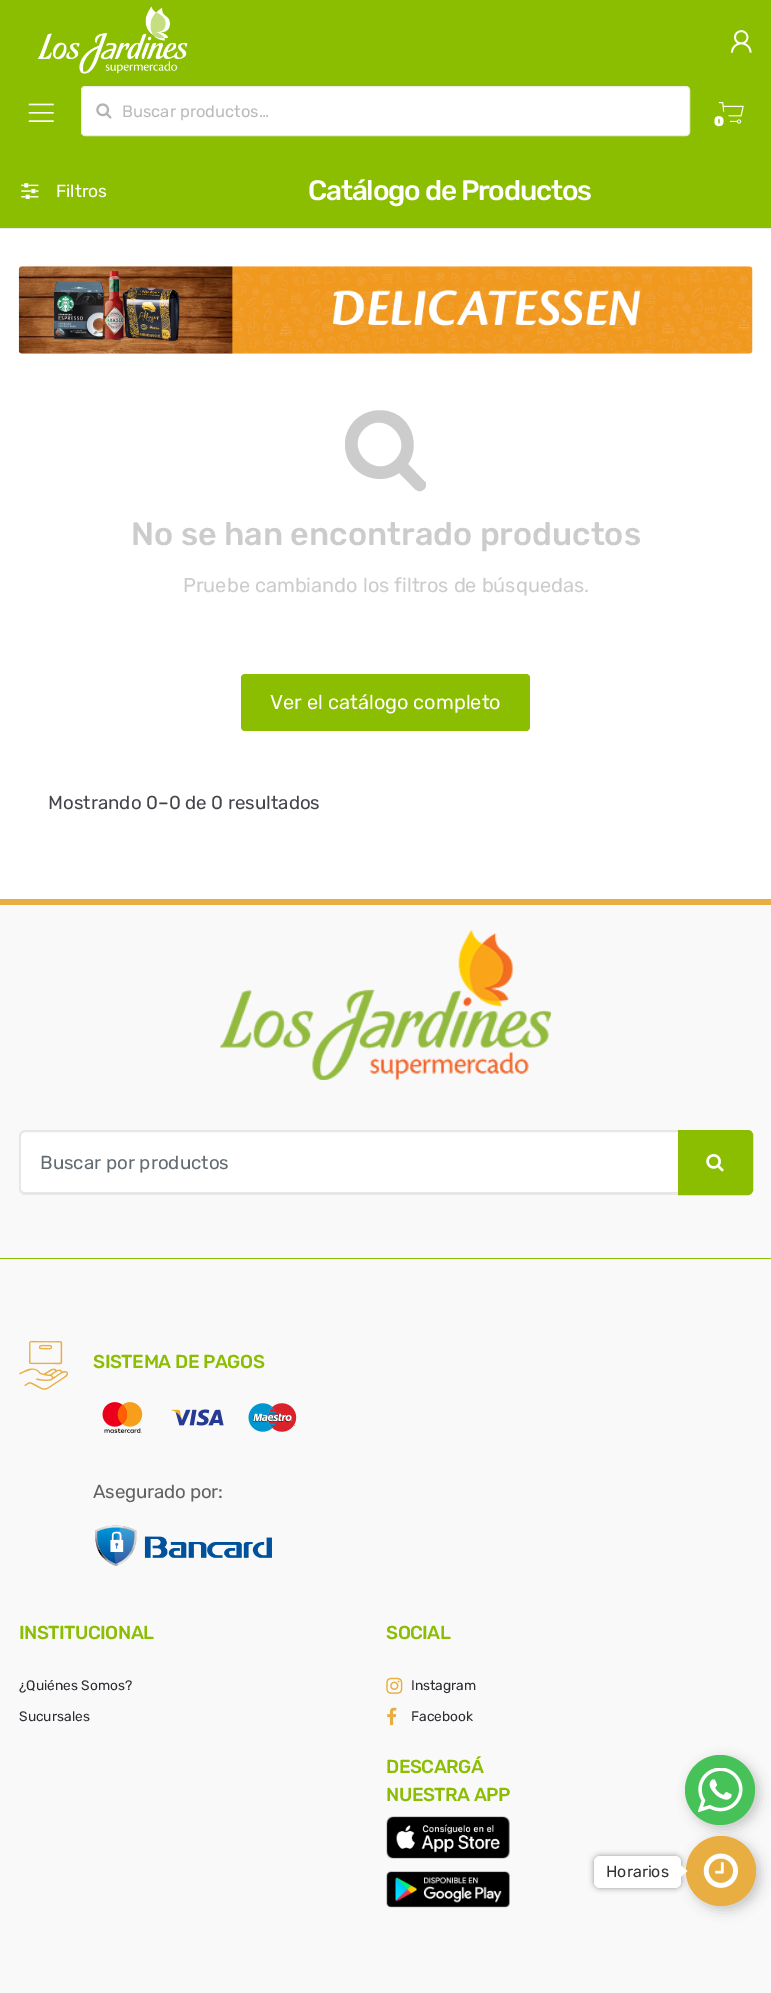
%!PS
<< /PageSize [771 1993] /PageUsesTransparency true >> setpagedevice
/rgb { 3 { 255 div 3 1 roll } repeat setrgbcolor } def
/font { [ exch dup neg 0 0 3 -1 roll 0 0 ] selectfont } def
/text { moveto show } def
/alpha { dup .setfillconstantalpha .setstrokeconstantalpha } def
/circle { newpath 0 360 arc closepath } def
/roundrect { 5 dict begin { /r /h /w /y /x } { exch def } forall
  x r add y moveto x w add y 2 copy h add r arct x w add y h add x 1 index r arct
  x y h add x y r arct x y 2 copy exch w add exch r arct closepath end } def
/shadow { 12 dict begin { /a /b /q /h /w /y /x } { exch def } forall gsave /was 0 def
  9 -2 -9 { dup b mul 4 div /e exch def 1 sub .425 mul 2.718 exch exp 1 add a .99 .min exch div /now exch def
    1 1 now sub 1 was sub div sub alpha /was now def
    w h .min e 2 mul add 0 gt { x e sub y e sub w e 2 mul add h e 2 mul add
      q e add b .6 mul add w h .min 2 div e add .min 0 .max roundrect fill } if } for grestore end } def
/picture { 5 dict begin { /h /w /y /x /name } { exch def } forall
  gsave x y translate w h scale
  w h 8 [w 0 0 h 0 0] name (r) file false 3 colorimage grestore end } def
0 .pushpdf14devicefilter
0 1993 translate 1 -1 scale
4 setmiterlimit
255 255 255 rgb
0 0 771 1993 rectfill
139 189 0 rgb
0 0 771 228 rectfill
(img_01.rgb) 37 6 151 68 picture
(img_02.rgb) 730 30 22 23 picture
(img_03.rgb) 28 103 26 19 picture
255 255 255 rgb
81.5 86.5 608 49 3.5 roundrect gsave fill grestore
235 235 235 rgb
stroke
(img_04.rgb) 96 103 16 16 picture
(img_05.rgb) 718 102 26 22 picture
139 189 0 rgb
709 111 21 22 10.5 roundrect fill
235 235 235 rgb
0 228 771 1 rectfill
(img_06.rgb) 21 183 18 16 picture
(img_07.rgb) 18 266 735 88 picture
204 204 204 rgb
395 460 moveto 20 -20 -11 -51 -31 -31 rcurveto -20 20 11 51 31 31 rcurveto closepath 426 485 moveto 0 2 -1 4 -3 5 rcurveto -5 4 -10 -3 -13 -6 rcurveto -11 -11 rlineto -17 12 -42 5 -51 -14 rcurveto -3 -7 -4 -15 -2 -23 rcurveto 9 -33 56 -35 66 -2 rcurveto 3 10 2 21 -4 30 rcurveto 16 17 rlineto 2 1 2 2 2 4 rcurveto closepath fill
139 189 0 rgb
241 674 289 57 4 roundrect fill
249 249 249 rgb
0 905 771 1088 rectfill
232 174 65 rgb
0 899 771 6 rectfill
139 189 0 rgb
0 1258 771 1 rectfill
(img_08.rgb) 220 930 332 150 picture
255 255 255 rgb
25 1133 moveto 654 0 rlineto 0 60 rlineto -654 0 rlineto -2 0 -4 -2 -4 -4 rcurveto 0 -52 rlineto 0 -2 2 -4 4 -4 rcurveto closepath fill
231 231 231 rgb
25 1130 moveto 654 0 rlineto 0 65 rlineto -654 0 rlineto -3 0 -6 -3 -6 -6 rcurveto 0 -53 rlineto 0 -3 3 -6 6 -6 rcurveto closepath 25 1132 moveto 654 0 rlineto 0 60 rlineto -654 0 rlineto -2 0 -4 -1 -4 -3 rcurveto 0 -53 rlineto 0 -2 2 -4 4 -4 rcurveto closepath eofill
139 189 0 rgb
678.5 1130.5 moveto 69.5 0 rlineto 2.5 0 4.5 2 4.5 4.5 rcurveto 0 55 rlineto 0 2.5 -2 4.5 -4.5 4.5 rcurveto -69.5 0 rlineto closepath gsave fill grestore
stroke
(img_09.rgb) 706 1154 18 18 picture
(img_10.rgb) 19 1340 49 50 picture
(img_11.rgb) 102 1402 41 31 picture
(img_12.rgb) 171 1409 53 17 picture
(img_13.rgb) 248 1403 49 29 picture
(img_14.rgb) 95 1525 177 42 picture
(img_15.rgb) 386 1677 17 17 picture
(img_16.rgb) 387 1707 10 19 picture
(img_17.rgb) 386 1816 124 43 picture
(img_18.rgb) 386 1871 124 37 picture
0 0 0 rgb
689 1759 70 70 35 6 0.2 shadow
71 194 88 rgb
720 1790 35 circle fill
(img_19.rgb) 698 1768 45 45 picture
0 0 0 rgb
690 1840 70 70 35 6 0.2 shadow
232 174 65 rgb
721 1871 35 circle fill
0 0 0 rgb
594 1856 87 32 6 3 0.4 shadow
255 255 255 rgb
594 1856 87 32 6 roundrect fill
680 1877.5 moveto 0 -12.5 rlineto 7.5 6 rlineto closepath fill
(img_20.rgb) 703 1853 35 35 picture
/Rubik-Regular 16.5 font
186 186 186 rgb
(Buscar productos…) 122 117 text
/Rubik-Black 14 font
255 255 255 rgb
(0) 714 126 text
/Rubik-Regular 17.5 font
(Filtros) 56 197 text
/Rubik-Medium 28.1 font
308 200 moveto -1.25 0 (Catálogo de Productos) ashow
/Rubik-Medium 32.4 font
204 204 204 rgb
(No se han encontrado productos) 131 545 text
/Rubik-Regular 20 font
(Pruebe cambiando los filtros de búsquedas.) 183 592 text
255 255 255 rgb
(Ver el catálogo completo) 270 709 text
/Rubik-Regular 18.75 font
67 69 75 rgb
(Mostrando 0–0 de 0 resultados) 48 809 text
99 108 114 rgb
(Buscar por productos) 40 1169 text
/Rubik-Medium 18.75 font
139 189 0 rgb
93 1368 moveto -0.4 0 (SISTEMA DE PAGOS) ashow
/Rubik-Regular 18.75 font
98 98 98 rgb
93 1498 moveto -0.25 0 (Asegurado por:) ashow
/Rubik-Medium 18.75 font
139 189 0 rgb
19 1639 moveto -0.5 0 (INSTITUCIONAL) ashow
/Rubik-Regular 13.75 font
44 45 51 rgb
(¿Quiénes Somos?) 19 1690 text
(Sucursales) 19 1721 text
/Rubik-Medium 18.75 font
139 189 0 rgb
386 1639 moveto -0.5 0 (SOCIAL) ashow
/Rubik-Regular 13.75 font
44 45 51 rgb
(Instagram) 411 1690 text
(Facebook) 411 1721 text
/Rubik-Medium 18.75 font
139 189 0 rgb
386 1773 moveto -0.5 0 (DESCARGÁ) ashow
386 1801 moveto -0.5 0 (NUESTRA APP) ashow
/Rubik-Regular 16 font
51 51 51 rgb
(Horarios) 606 1877 text
.poppdf14devicefilter showpage
